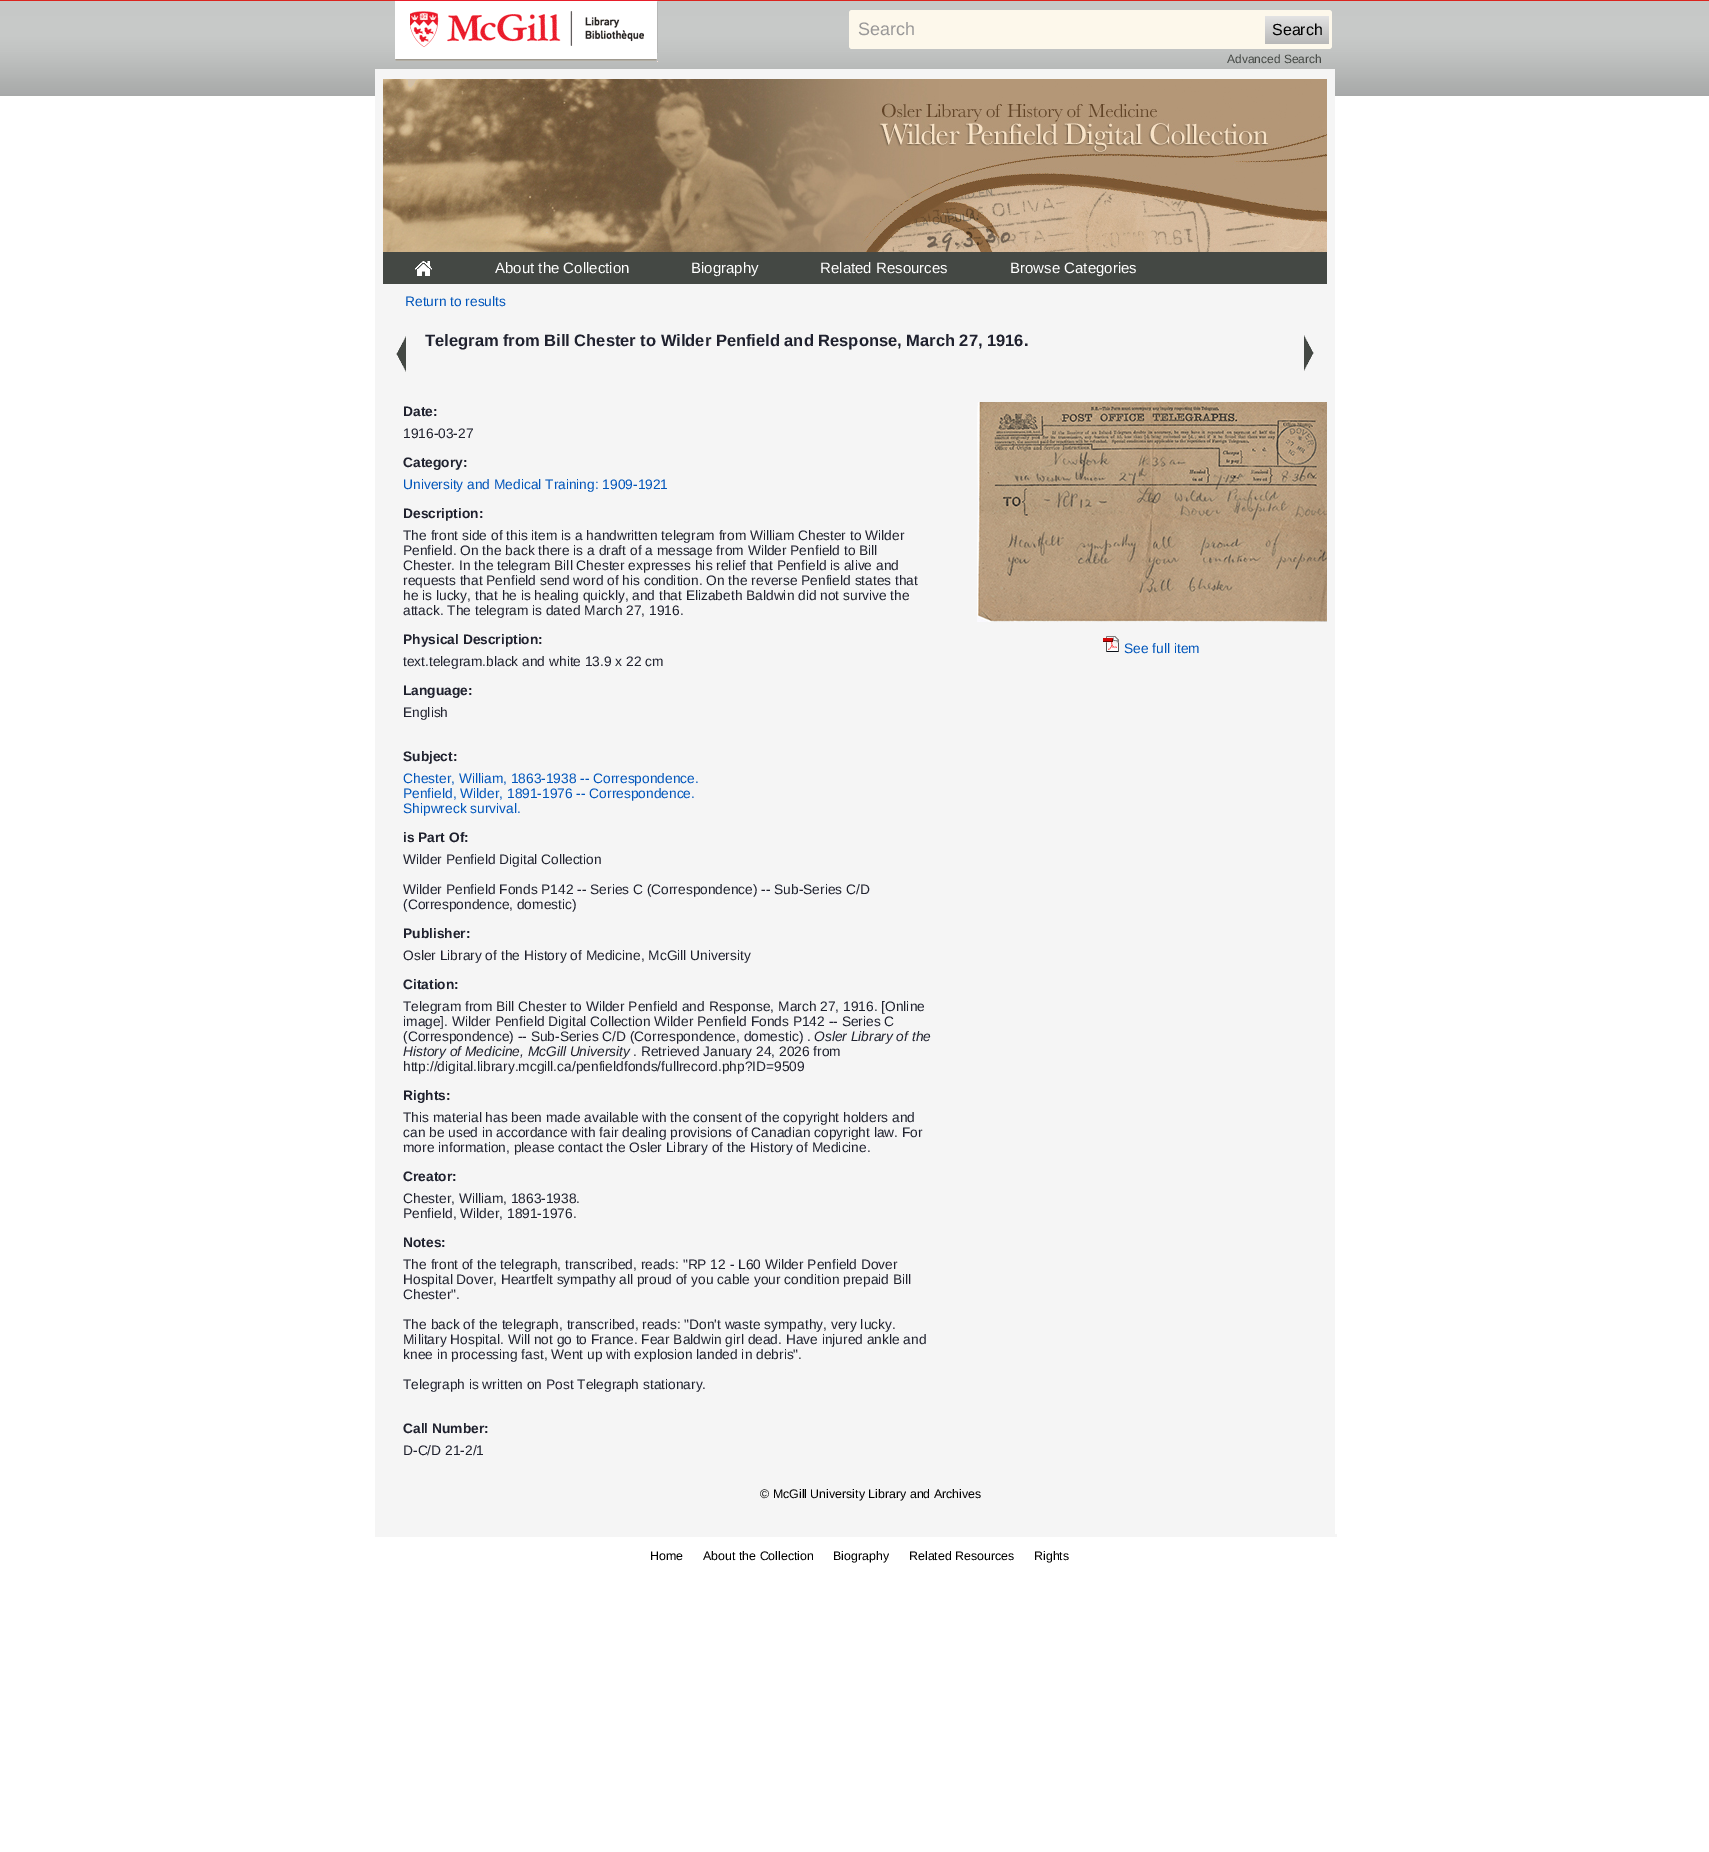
%!PS
<< /PageSize [1709 1852] >> setpagedevice
/rgb { 3 { 255 div 3 1 roll } repeat setrgbcolor } def
/font { [ exch dup neg 0 0 3 -1 roll 0 0 ] selectfont } def
/text { moveto show } def
/roundrect { 5 dict begin { /r /h /w /y /x } { exch def } forall
  x r add y moveto x w add y 2 copy h add r arct x w add y h add x 1 index r arct
  x y h add x y r arct x y 2 copy exch w add exch r arct closepath end } def
/picture { 5 dict begin { /h /w /y /x /name } { exch def } forall
  gsave x y translate w h scale
  w h 8 [w 0 0 h 0 0] name (r) file false 3 colorimage grestore end } def
0 1852 translate 1 -1 scale
4 setmiterlimit
255 255 255 rgb
0 0 1709 1852 rectfill
(img_01.rgb) 0 0 1709 96 picture
(img_02.rgb) 395 0 263 62 picture
253 248 235 rgb
849 10 483 39 3 roundrect fill
gsave 1265 16 64 28 3 roundrect clip newpath
<< /ShadingType 2 /ColorSpace /DeviceRGB /Coords [1265 16 1265 44] /Extend [true true] /Function << /FunctionType 2 /Domain [0 1] /C0 [0.894 0.894 0.894] /C1 [0.722 0.722 0.722] /N 1 >> >> shfill grestore
245 245 245 rgb
375 1534 962 3 rectfill
375 69 960 1465 rectfill
(img_03.rgb) 383 79 944 173 picture
68 72 68 rgb
383 252 944 32 rectfill
(img_04.rgb) 415 261 17 15 picture
(img_05.rgb) 396 336 10 36 picture
(img_06.rgb) 1304 335 10 36 picture
(img_07.rgb) 977 402 350 220 picture
(img_08.rgb) 1103 636 16 16 picture
/LiberationSans-Regular 18 font
153 152 152 rgb
(Search) 858 35 text
/LiberationSans-Regular 16 font
0 0 0 rgb
(Search) 1272 35 text
/LiberationSans-Regular 12 font
68 72 68 rgb
(Advanced Search) 1227 63 text
/LiberationSans-Regular 15 font
255 255 255 rgb
(About the Collection) 495 273 text
(Biography) 691 273 text
(Related Resources) 820 273 text
(Browse Categories) 1010 273 text
/LiberationSans-Regular 13.75 font
0 85 187 rgb
(Return to results) 405 306 text
/LiberationSans-Bold 16.5 font
31 33 46 rgb
(Telegram from Bill Chester to Wilder Penfield and Response, March 27, 1916.) 425 346 text
/LiberationSans-Bold 13.75 font
(Date:) 403 416 text
/LiberationSans-Regular 13.75 font
(1916-03-27) 403 438 text
/LiberationSans-Bold 13.75 font
(Category:) 403 467 text
/LiberationSans-Regular 13.75 font
0 85 187 rgb
(University and Medical Training: 1909-1921) 403 489 text
/LiberationSans-Bold 13.75 font
31 33 46 rgb
(Description:) 403 518 text
/LiberationSans-Regular 13.75 font
(The front side of this item is a handwritten telegram from William Chester to Wilder) 403 540 text
(Penfield. On the back there is a draft of a message from Wilder Penfield to Bill) 403 555 text
(Chester. In the telegram Bill Chester expresses his relief that Penfield is alive and) 403 570 text
(requests that Penfield send word of his condition. On the reverse Penfield states that) 403 585 text
(he is lucky, that he is healing quickly, and that Elizabeth Baldwin did not survive the) 403 600 text
(attack. The telegram is dated March 27, 1916.) 403 615 text
/LiberationSans-Bold 13.75 font
(Physical Description:) 403 644 text
/LiberationSans-Regular 13.75 font
(text.telegram.black and white 13.9 x 22 cm) 403 666 text
/LiberationSans-Bold 13.75 font
(Language:) 403 695 text
/LiberationSans-Regular 13.75 font
(English) 403 717 text
/LiberationSans-Bold 13.75 font
(Subject:) 403 761 text
/LiberationSans-Regular 13.75 font
0 85 187 rgb
(Chester, William, 1863-1938 -- Correspondence.) 403 783 text
(Penfield, Wilder, 1891-1976 -- Correspondence.) 403 798 text
(Shipwreck survival.) 403 813 text
/LiberationSans-Bold 13.75 font
31 33 46 rgb
(is Part Of:) 403 842 text
/LiberationSans-Regular 13.75 font
(Wilder Penfield Digital Collection) 403 864 text
(Wilder Penfield Fonds P142 -- Series C \(Correspondence\) -- Sub-Series C/D) 403 894 text
(\(Correspondence, domestic\)) 403 909 text
/LiberationSans-Bold 13.75 font
(Publisher:) 403 938 text
/LiberationSans-Regular 13.75 font
(Osler Library of the History of Medicine, McGill University) 403 960 text
/LiberationSans-Bold 13.75 font
(Citation:) 403 989 text
/LiberationSans-Regular 13.75 font
(Telegram from Bill Chester to Wilder Penfield and Response, March 27, 1916. [Online) 403 1011 text
(image]. Wilder Penfield Digital Collection Wilder Penfield Fonds P142 -- Series C) 403 1026 text
(\(Correspondence\) -- Sub-Series C/D \(Correspondence, domestic\) .) 403 1041 text
/LiberationSans-Italic 13.75 font
(Osler Library of the) 814 1041 text
(History of Medicine, McGill University) 403 1056 text
/LiberationSans-Regular 13.75 font
(. Retrieved January 24, 2026 from) 633 1056 text
(http://digital.library.mcgill.ca/penfieldfonds/fullrecord.php?ID=9509) 403 1071 text
/LiberationSans-Bold 13.75 font
(Rights:) 403 1100 text
/LiberationSans-Regular 13.75 font
(This material has been made available with the consent of the copyright holders and) 403 1122 text
(can be used in accordance with fair dealing provisions of Canadian copyright law. For) 403 1137 text
(more information, please contact the Osler Library of the History of Medicine.) 403 1152 text
/LiberationSans-Bold 13.75 font
(Creator:) 403 1181 text
/LiberationSans-Regular 13.75 font
(Chester, William, 1863-1938.) 403 1203 text
(Penfield, Wilder, 1891-1976.) 403 1218 text
/LiberationSans-Bold 13.75 font
(Notes:) 403 1247 text
/LiberationSans-Regular 13.75 font
(The front of the telegraph, transcribed, reads: "RP 12 - L60 Wilder Penfield Dover) 403 1269 text
(Hospital Dover, Heartfelt sympathy all proud of you cable your condition prepaid Bill) 403 1284 text
(Chester".) 403 1299 text
(The back of the telegraph, transcribed, reads: "Don't waste sympathy, very lucky.) 403 1329 text
(Military Hospital. Will not go to France. Fear Baldwin girl dead. Have injured ankle and) 403 1344 text
(knee in processing fast, Went up with explosion landed in debris".) 403 1359 text
(Telegraph is written on Post Telegraph stationary.) 403 1389 text
/LiberationSans-Bold 13.75 font
(Call Number:) 403 1433 text
/LiberationSans-Regular 13.75 font
(D-C/D 21-2/1) 403 1455 text
0 85 187 rgb
(See full item) 1124 653 text
/LiberationSans-Regular 12.4 font
0 0 0 rgb
(© McGill University Library and Archives) 760 1498 text
(Home) 650 1560 text
(About the Collection) 703 1560 text
(Biography) 833 1560 text
(Related Resources) 909 1560 text
(Rights) 1034 1560 text
showpage
